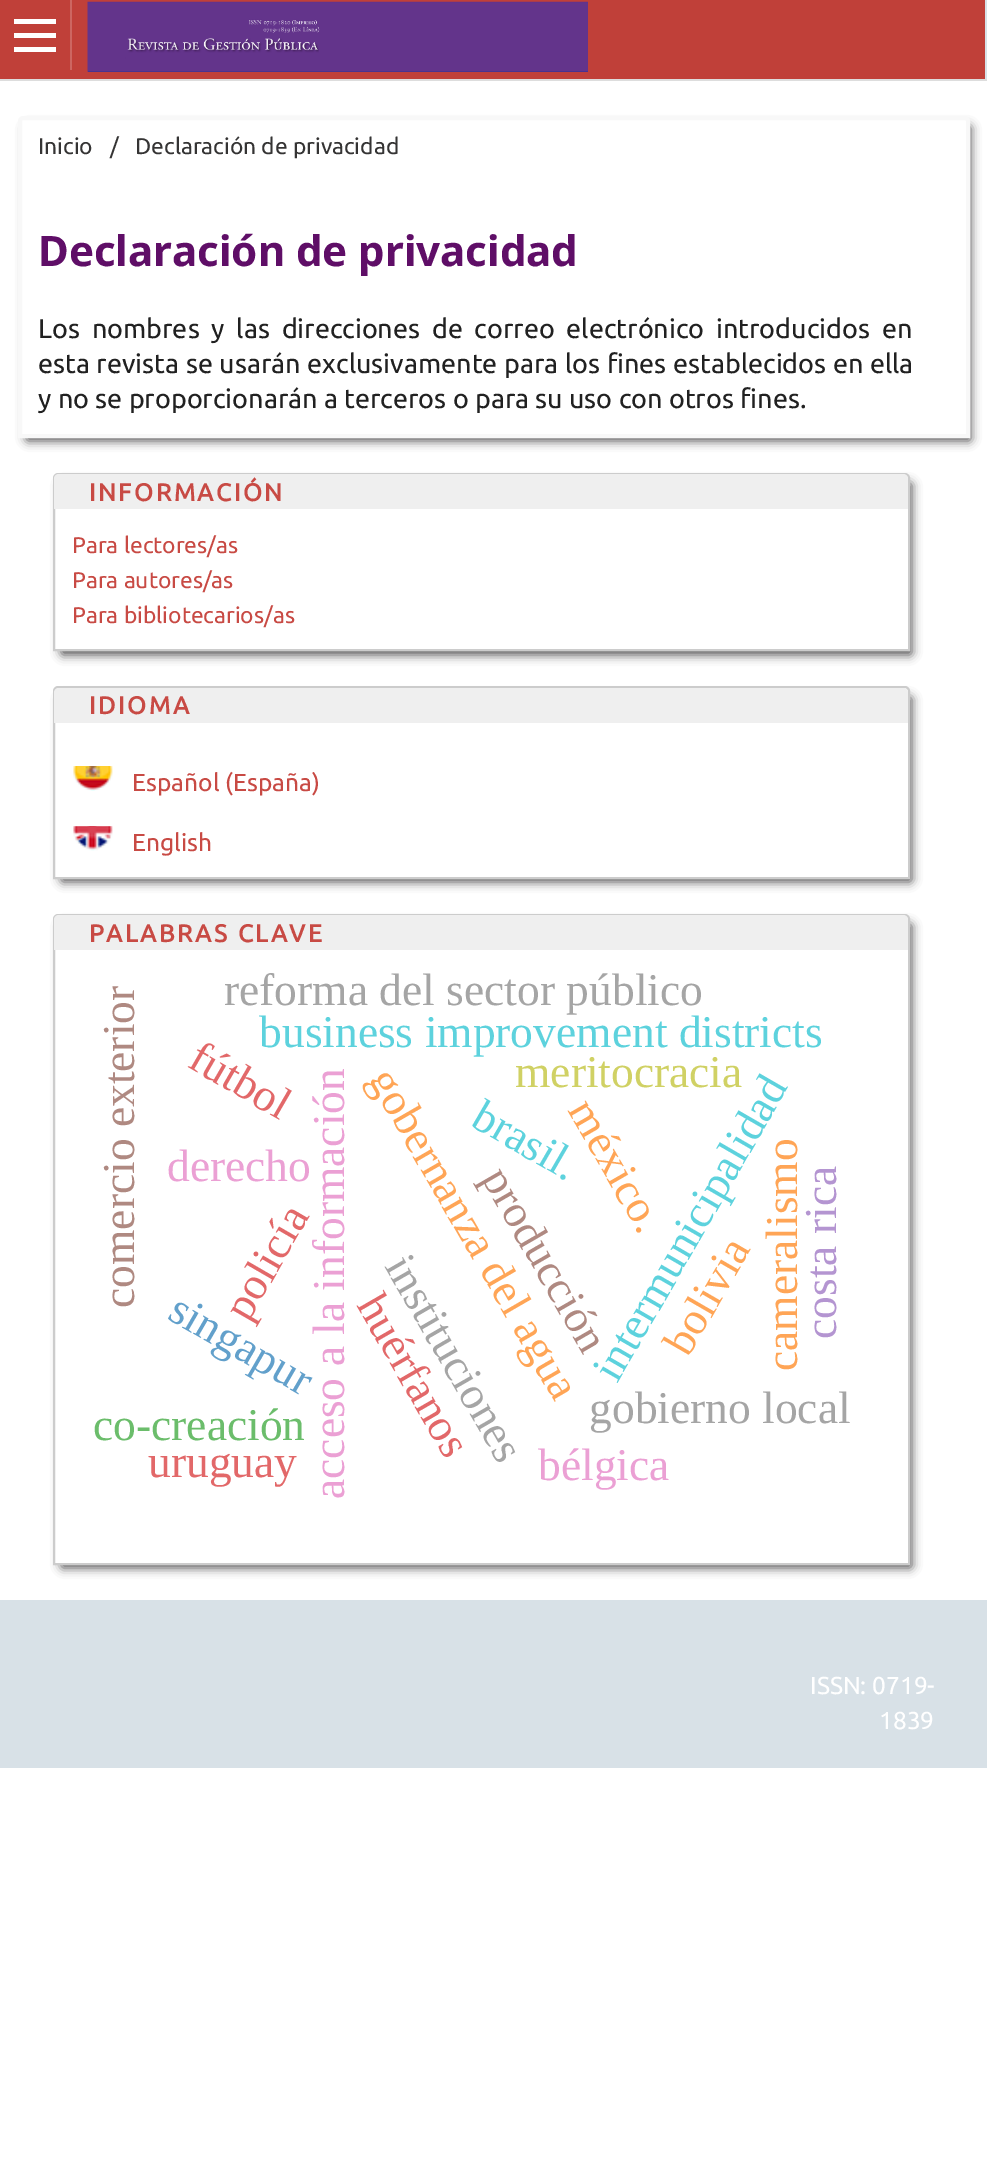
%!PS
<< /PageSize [987 2165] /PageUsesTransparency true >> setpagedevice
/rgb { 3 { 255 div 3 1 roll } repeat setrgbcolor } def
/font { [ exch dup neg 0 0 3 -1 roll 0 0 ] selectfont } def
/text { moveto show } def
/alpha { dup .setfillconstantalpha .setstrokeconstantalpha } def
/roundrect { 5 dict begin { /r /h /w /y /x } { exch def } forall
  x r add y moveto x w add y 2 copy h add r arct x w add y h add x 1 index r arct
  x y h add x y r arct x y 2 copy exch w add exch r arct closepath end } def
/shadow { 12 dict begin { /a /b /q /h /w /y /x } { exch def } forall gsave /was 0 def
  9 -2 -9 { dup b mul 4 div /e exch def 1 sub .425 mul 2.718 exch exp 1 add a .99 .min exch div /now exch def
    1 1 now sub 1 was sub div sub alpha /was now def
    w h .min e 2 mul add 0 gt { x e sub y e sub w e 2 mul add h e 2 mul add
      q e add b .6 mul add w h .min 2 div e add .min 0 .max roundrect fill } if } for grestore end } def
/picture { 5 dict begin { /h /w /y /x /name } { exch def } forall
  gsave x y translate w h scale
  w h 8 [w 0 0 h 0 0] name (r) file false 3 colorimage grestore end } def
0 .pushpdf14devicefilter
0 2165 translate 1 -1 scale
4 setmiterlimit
255 255 255 rgb
0 0 987 2165 rectfill
216 225 231 rgb
0 0 987 1768 rectfill
221 221 221 rgb
0 79 987 2 rectfill
192 64 57 rgb
0 0 985 79 rectfill
205 102 97 rgb
70 0 2 70 rectfill
255 255 255 rgb
14 47 42 5 rectfill
14 19 42 5 rectfill
14 33 42 5 rectfill
(img_01.rgb) 87 1 501 71 picture
0 81 987 1519 rectfill
gsave
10 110 moveto 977 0 rlineto 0 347 rlineto -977 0 rlineto closepath 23 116 moveto 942 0 rlineto 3 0 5 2 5 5 rcurveto 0 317 rlineto -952 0 rlineto 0 -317 rlineto 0 -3 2 -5 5 -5 rcurveto closepath eoclip newpath
82 80 82 rgb
26 126 945 315 2 5 1 shadow
grestore
248 248 248 rgb
4 setlinewidth
23 118 moveto 942 0 rlineto 1.5 0 3 1.5 3 3 rcurveto 0 315 rlineto -948 0 rlineto 0 -315 rlineto 0 -1.5 1.5 -3 3 -3 rcurveto closepath stroke
gsave
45 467 moveto 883 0 rlineto 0 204 rlineto -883 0 rlineto closepath 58 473 moveto 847 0 rlineto 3 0 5 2 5 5 rcurveto 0 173 rlineto -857 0 rlineto 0 -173 rlineto 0 -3 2 -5 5 -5 rcurveto closepath eoclip newpath
82 80 82 rgb
61 483 851 172 2 5 1 shadow
grestore
204 204 204 rgb
2 setlinewidth
58 474 moveto 847 0 rlineto 2 0 4 2 4 4 rcurveto 0 172 rlineto -855 0 rlineto 0 -172 rlineto 0 -2 2 -4 4 -4 rcurveto closepath stroke
239 239 239 rgb
59 474 moveto 844 0 rlineto 3 0 5 2 5 5 rcurveto 0 30 rlineto -854 0 rlineto 0 -30 rlineto 0 -3 2 -5 5 -5 rcurveto closepath fill
gsave
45 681 moveto 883 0 rlineto 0 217 rlineto -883 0 rlineto closepath 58 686 moveto 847 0 rlineto 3 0 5 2 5 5 rcurveto 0 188 rlineto -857 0 rlineto 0 -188 rlineto 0 -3 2 -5 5 -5 rcurveto closepath eoclip newpath
82 80 82 rgb
61 697 851 185 2 5 1 shadow
grestore
204 204 204 rgb
58 687 moveto 847 0 rlineto 2 0 4 2 4 4 rcurveto 0 187 rlineto -855 0 rlineto 0 -187 rlineto 0 -2 2 -4 4 -4 rcurveto closepath stroke
239 239 239 rgb
59 688 moveto 844 0 rlineto 3 0 5 2 5 5 rcurveto 0 30 rlineto -854 0 rlineto 0 -30 rlineto 0 -3 2 -5 5 -5 rcurveto closepath fill
(img_02.rgb) 73 766 40 25 picture
(img_03.rgb) 73 826 40 25 picture
gsave
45 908 moveto 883 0 rlineto 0 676 rlineto -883 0 rlineto closepath 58 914 moveto 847 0 rlineto 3 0 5 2 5 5 rcurveto 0 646 rlineto -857 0 rlineto 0 -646 rlineto 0 -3 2 -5 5 -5 rcurveto closepath eoclip newpath
82 80 82 rgb
61 924 851 644 2 5 1 shadow
grestore
204 204 204 rgb
58 915 moveto 847 0 rlineto 2 0 4 2 4 4 rcurveto 0 645 rlineto -855 0 rlineto 0 -645 rlineto 0 -2 2 -4 4 -4 rcurveto closepath stroke
239 239 239 rgb
59 915 moveto 844 0 rlineto 3 0 5 2 5 5 rcurveto 0 30 rlineto -854 0 rlineto 0 -30 rlineto 0 -3 2 -5 5 -5 rcurveto closepath fill
/Ubuntu-Regular 22.75 font
53 52 52 rgb
(Inicio) 38 154 text
(/) 110 154 text
(Declaración de privacidad) 135 154 text
/NotoSans-Bold 42 font
95 14 103 rgb
(Declaración de privacidad) 38 266 text
/Ubuntu-Regular 26.95 font
33 33 33 rgb
38 338 moveto 5.5 0 32 (Los nombres y las direcciones de correo electrónico introducidos en) widthshow
38 373 moveto 0.25 0 32 (esta revista se usarán exclusivamente para los fines establecidos en ella) widthshow
(y no se proporcionarán a terceros o para su uso con otros fines.) 38 408 text
/Ubuntu-Bold 24.5 font
200 74 68 rgb
89 501 moveto 2.5 0 (INFORMACIÓN) ashow
/Ubuntu-Regular 22.75 font
(Para lectores/as) 72 553 text
(Para autores/as) 72 588 text
(Para bibliotecarios/as) 72 623 text
/Ubuntu-Bold 24.5 font
89 714 moveto 2.5 0 (IDIOMA) ashow
/Ubuntu-Regular 24.5 font
(Español \(España\)) 132 791 text
(English) 132 851 text
/Ubuntu-Bold 24.5 font
89 942 moveto 2.5 0 (PALABRAS CLAVE) ashow
/LiberationSerif-Regular 45.5 font
175 137 129 rgb
gsave 134 1308 translate -90 rotate 0 0 moveto (comercio exterior) show grestore
165 165 165 rgb
(reforma del sector público) 224 1005 text
93 210 221 rgb
(business improvement districts) 259 1047 text
226 104 105 rgb
gsave 186 1066 translate 30 rotate 0 0 moveto (fútbol) show grestore
235 160 212 rgb
gsave 344 1499 translate -90 rotate 0 0 moveto (acceso a la información) show grestore
93 210 221 rgb
gsave 617 1384 translate -60 rotate 0 0 moveto (intermunicipalidad) show grestore
235 160 212 rgb
(derecho) 167 1181 text
255 165 86 rgb
gsave 797 1371 translate -90 rotate 0 0 moveto (cameralismo) show grestore
180 149 209 rgb
gsave 836 1339 translate -90 rotate 0 0 moveto (costa rica) show grestore
226 104 105 rgb
gsave 248 1323 translate -60 rotate 0 0 moveto (policía) show grestore
165 165 165 rgb
gsave 384 1266 translate 60 rotate 0 0 moveto (instituciones) show grestore
255 165 86 rgb
gsave 368 1079 translate 60 rotate 0 0 moveto (gobernanza del agua) show grestore
93 210 221 rgb
gsave 469 1125 translate 30 rotate 0 0 moveto (brasil.) show grestore
255 165 86 rgb
gsave 567 1110 translate 60 rotate 0 0 moveto (méxico.) show grestore
175 137 129 rgb
gsave 481 1178 translate 60 rotate 0 0 moveto (producción) show grestore
208 209 100 rgb
(meritocracia) 515 1087 text
255 165 86 rgb
gsave 688 1358 translate -60 rotate 0 0 moveto (bolivia) show grestore
98 160 203 rgb
gsave 166 1318 translate 30 rotate 0 0 moveto (singapur) show grestore
226 104 105 rgb
gsave 356 1305 translate 60 rotate 0 0 moveto (huérfanos) show grestore
107 189 107 rgb
(co-creación) 93 1440 text
165 165 165 rgb
(gobierno local) 589 1423 text
226 104 105 rgb
(uruguay) 148 1477 text
235 160 212 rgb
(bélgica) 538 1480 text
/Ubuntu-Regular 24.5 font
255 255 255 rgb
(ISSN: 0719-) 810 1694 text
(1839) 879 1729 text
.poppdf14devicefilter showpage
